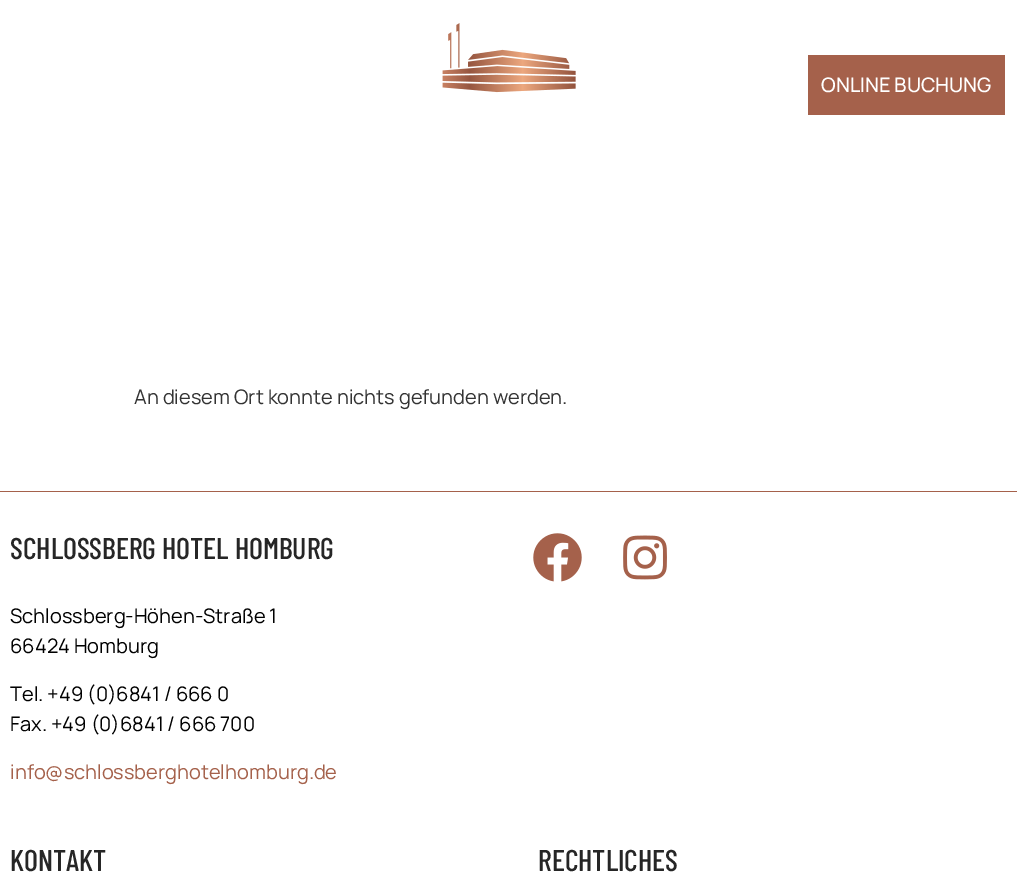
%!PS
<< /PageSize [1017 873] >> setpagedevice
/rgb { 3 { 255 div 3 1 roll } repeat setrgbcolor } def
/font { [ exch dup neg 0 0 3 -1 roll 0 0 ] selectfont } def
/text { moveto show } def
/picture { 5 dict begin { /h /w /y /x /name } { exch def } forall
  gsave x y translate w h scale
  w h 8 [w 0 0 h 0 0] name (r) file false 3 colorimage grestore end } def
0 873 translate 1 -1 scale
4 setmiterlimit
255 255 255 rgb
0 0 1017 873 rectfill
(img_01.rgb) 442 23 134 70 picture
165 97 75 rgb
808 55 197 60 rectfill
0 491 1017 1 rectfill
(img_02.rgb) 533 533 49 49 picture
(img_03.rgb) 623 535 44 45 picture
/Manrope-Medium 20 font
255 255 255 rgb
(ONLINE BUCHUNG) 821 92 text
/Manrope-Regular 20 font
51 51 51 rgb
(An diesem Ort konnte nichts gefunden werden.) 134 404 text
/BarlowCondensed-Medium 30 font
38 38 38 rgb
(SCHLOSSBERG HOTEL HOMBURG) 10 559 text
/Manrope-Regular 20 font
0 0 0 rgb
(Schlossberg-Höhen-Straße 1) 10 623 text
(66424 Homburg) 10 653 text
(Tel. +49 \(0\)6841 / 666 0) 10 701 text
(Fax. +49 \(0\)6841 / 666 700) 10 731 text
165 97 75 rgb
(info@schlossberghotelhomburg.de) 10 779 text
/BarlowCondensed-Medium 30 font
38 38 38 rgb
(KONTAKT) 10 871 text
(RECHTLICHES) 538 871 text
showpage
